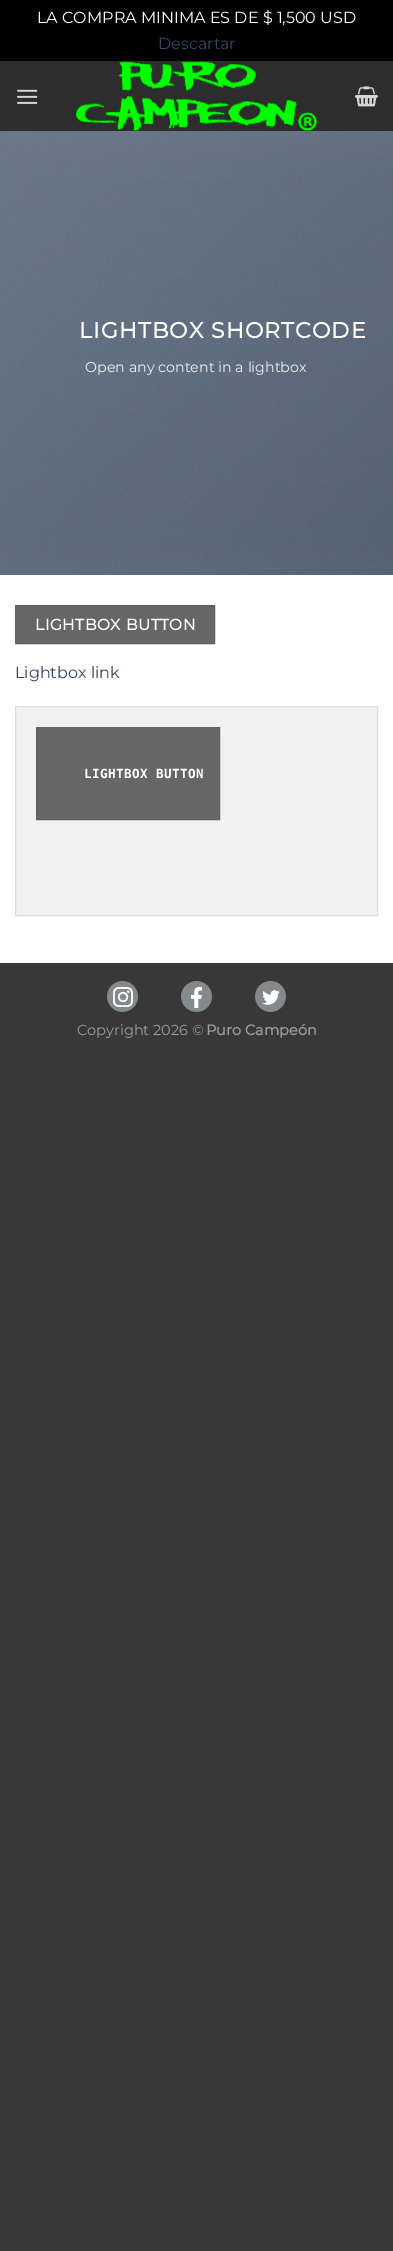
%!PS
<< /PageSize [393 2251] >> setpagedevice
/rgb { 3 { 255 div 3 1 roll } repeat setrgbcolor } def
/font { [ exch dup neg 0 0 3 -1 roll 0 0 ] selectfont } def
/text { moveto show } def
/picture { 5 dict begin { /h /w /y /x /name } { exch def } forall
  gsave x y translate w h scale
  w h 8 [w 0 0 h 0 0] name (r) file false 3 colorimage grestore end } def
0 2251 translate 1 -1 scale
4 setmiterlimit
56 56 56 rgb
0 0 393 2251 rectfill
0 0 0 rgb
0 0 393 61 rectfill
255 255 255 rgb
0 575 393 388 rectfill
45 45 45 rgb
0 61 393 70 rectfill
(img_01.rgb) 17 89 21 15 picture
(img_02.rgb) 76 61 241 70 picture
(img_03.rgb) 355 86 23 21 picture
(img_04.rgb) 0 131 393 444 picture
102 102 102 rgb
15.5 605.5 moveto 199 0 rlineto 0 38 rlineto -199 0 rlineto closepath gsave fill grestore
97 97 97 rgb
stroke
241 241 241 rgb
15.5 706.5 moveto 362 0 rlineto 0 209 rlineto -362 0 rlineto closepath gsave fill grestore
221 221 221 rgb
stroke
102 102 102 rgb
36.5 727.5 moveto 183 0 rlineto 0 92 rlineto -183 0 rlineto closepath gsave fill grestore
97 97 97 rgb
stroke
(img_05.rgb) 107 981 179 31 picture
/Montserrat-Regular 16 font
255 255 255 rgb
(LA COMPRA MINIMA ES DE $ 1,500 USD) 37 23 text
51 72 98 rgb
(Descartar) 158 49 text
/Montserrat-Bold 22 font
255 255 255 rgb
79 338 moveto 1.1 0 (LIGHTBOX SHORTCODE) ashow
/Montserrat-Regular 14.25 font
241 241 241 rgb
(Open any content in a lightbox) 85 372 text
/Montserrat-Bold 15.5 font
255 255 255 rgb
35 630 moveto 0.5 0 (LIGHTBOX BUTTON) ashow
/Montserrat-Regular 16 font
51 72 98 rgb
(Lightbox link) 15 678 text
/DejaVuSansMono-Bold 12.6 font
255 255 255 rgb
84 778 moveto 0.4 0 (LIGHTBOX BUTTON) ashow
/Montserrat-Regular 14.5 font
156 156 156 rgb
(Copyright 2026 ©) 77 1035 text
/Montserrat-Bold 14.5 font
(Puro Campeón) 206 1035 text
showpage
